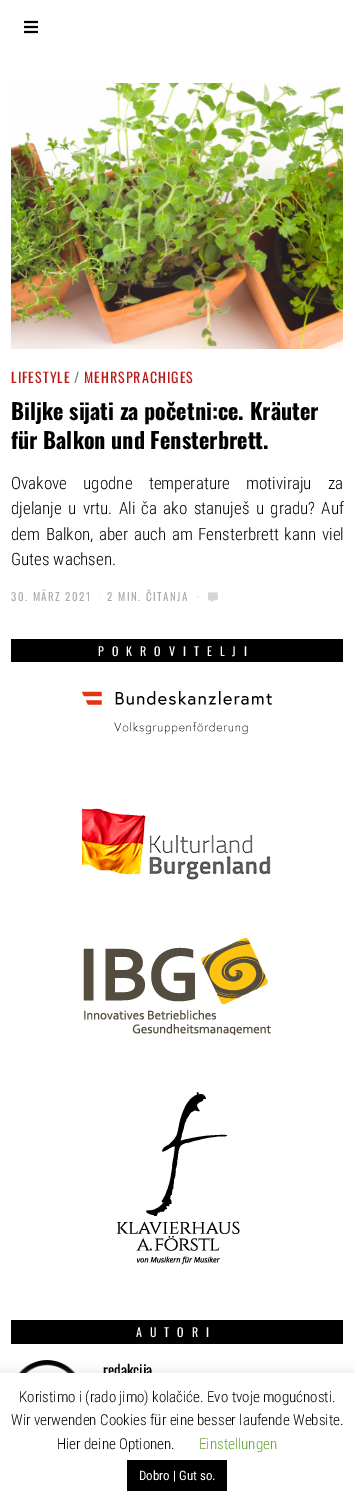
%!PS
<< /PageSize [354 1508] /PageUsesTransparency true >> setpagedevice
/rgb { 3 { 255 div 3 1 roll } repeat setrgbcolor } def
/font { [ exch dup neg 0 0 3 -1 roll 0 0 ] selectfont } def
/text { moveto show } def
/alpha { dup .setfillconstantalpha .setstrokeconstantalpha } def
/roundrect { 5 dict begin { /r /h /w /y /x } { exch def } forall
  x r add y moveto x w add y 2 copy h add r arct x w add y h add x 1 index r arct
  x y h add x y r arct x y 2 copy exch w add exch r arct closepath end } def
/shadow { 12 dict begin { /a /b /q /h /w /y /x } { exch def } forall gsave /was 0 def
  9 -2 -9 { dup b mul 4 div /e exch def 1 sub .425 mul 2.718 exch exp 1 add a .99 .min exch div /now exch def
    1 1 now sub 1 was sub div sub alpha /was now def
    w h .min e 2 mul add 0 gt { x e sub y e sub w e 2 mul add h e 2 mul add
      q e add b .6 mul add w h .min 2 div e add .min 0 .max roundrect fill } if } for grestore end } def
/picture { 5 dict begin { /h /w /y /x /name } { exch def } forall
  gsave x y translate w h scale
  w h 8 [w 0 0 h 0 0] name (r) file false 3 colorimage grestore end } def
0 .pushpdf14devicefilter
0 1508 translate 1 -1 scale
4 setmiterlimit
255 255 255 rgb
0 0 354 1508 rectfill
(img_01.rgb) 24 20 14 14 picture
(img_02.rgb) 11 83 332 266 picture
(img_03.rgb) 208 592 10 10 picture
0 0 0 rgb
11 639 332 23 rectfill
(img_04.rgb) 82 691 190 44 picture
(img_05.rgb) 82 808 189 73 picture
(img_06.rgb) 83 937 188 98 picture
(img_07.rgb) 116 1092 124 173 picture
11 1320 332 24 rectfill
(img_08.rgb) 18 1360 58 13 picture
172 171 171 rgb
0 1372 354 135 0 5 0.3 shadow
/Oswald-Regular 14 font
187 25 25 rgb
11 383 moveto 1 0 (LIFESTYLE) ashow
128 128 128 rgb
74 383 moveto 1 0 (/) ashow
187 25 25 rgb
84 383 moveto 1 0 (MEHRSPRACHIGES) ashow
/Oswald-Bold 22.1 font
0 0 0 rgb
(Biljke sijati za početni:ce. Kräuter) 11 420 text
(für Balkon und Fensterbrett.) 11 449 text
/RobotoCondensed-Light 17 font
11 489 moveto 12.5 0 32 (Ovakove ugodne temperature motiviraju za) widthshow
11 514 moveto 2.5 0 32 (djelanje u vrtu. Ali ča ako stanuješ u gradu? Auf) widthshow
11 540 moveto 1.75 0 32 (dem Balkon, aber auch am Fensterbrett kann viel) widthshow
(Gutes wachsen.) 11 565 text
/Oswald-Regular 11 font
170 170 170 rgb
11 601 moveto 1.5 0 (30. MÄRZ 2021) ashow
221 221 221 rgb
100 601 moveto 1.5 0 (·) ashow
170 170 170 rgb
107 601 moveto 1.5 0 (2 MIN. ČITANJA) ashow
201 201 201 rgb
197 601 moveto 1.5 0 (·) ashow
/Oswald-Regular 12 font
255 255 255 rgb
98 656 moveto 8 0 (POKROVITELJI) ashow
136 1337 moveto 8 0 (AUTORI) ashow
/Oswald-Regular 15 font
0 0 0 rgb
(redakcija) 103 1376 text
255 255 255 rgb
0 1373 354 135 rectfill
/RobotoCondensed-Light 15 font
0 0 0 rgb
(Koristimo i \(rado jimo\) kolačiće. Evo tvoje mogućnosti.) 19 1402 text
(Wir verwenden Cookies für eine besser laufende Website.) 11 1425 text
(Hier deine Optionen.) 57 1449 text
98 163 41 rgb
(Einstellungen) 199 1449 text
0 0 0 rgb
127 1460 100 31 rectfill
/RobotoCondensed-Regular 13 font
255 255 255 rgb
(Dobro | Gut so.) 139 1480 text
.poppdf14devicefilter showpage
